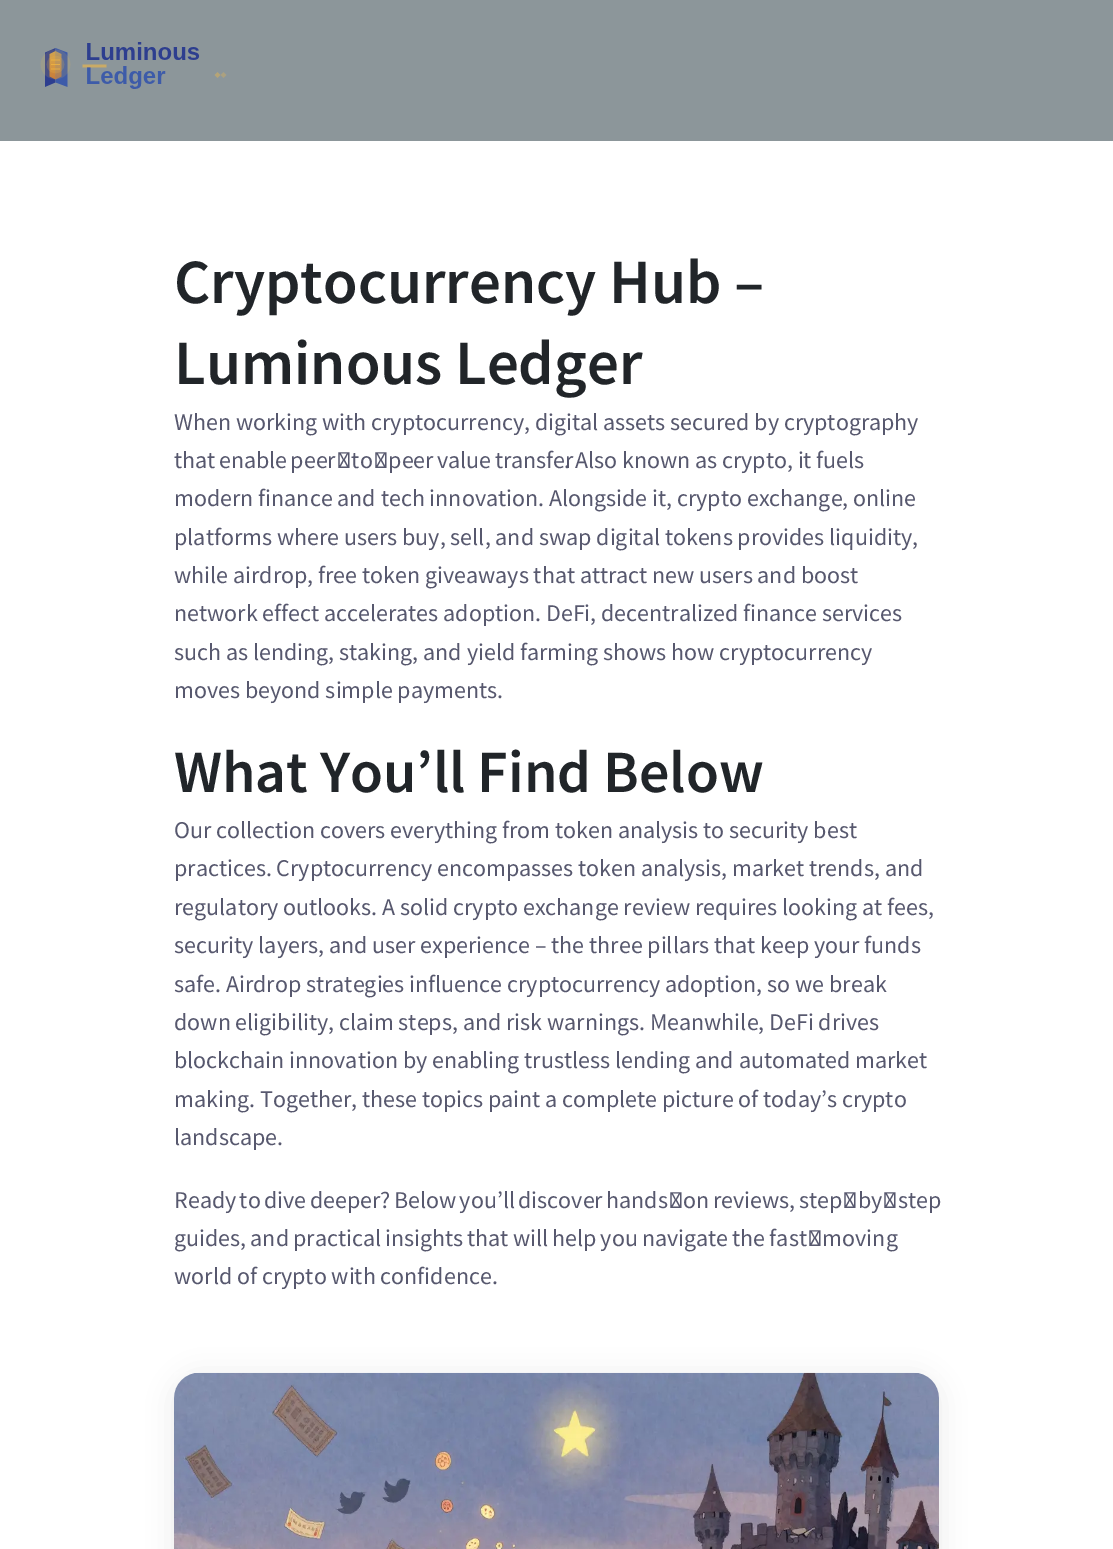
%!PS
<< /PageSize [1113 1549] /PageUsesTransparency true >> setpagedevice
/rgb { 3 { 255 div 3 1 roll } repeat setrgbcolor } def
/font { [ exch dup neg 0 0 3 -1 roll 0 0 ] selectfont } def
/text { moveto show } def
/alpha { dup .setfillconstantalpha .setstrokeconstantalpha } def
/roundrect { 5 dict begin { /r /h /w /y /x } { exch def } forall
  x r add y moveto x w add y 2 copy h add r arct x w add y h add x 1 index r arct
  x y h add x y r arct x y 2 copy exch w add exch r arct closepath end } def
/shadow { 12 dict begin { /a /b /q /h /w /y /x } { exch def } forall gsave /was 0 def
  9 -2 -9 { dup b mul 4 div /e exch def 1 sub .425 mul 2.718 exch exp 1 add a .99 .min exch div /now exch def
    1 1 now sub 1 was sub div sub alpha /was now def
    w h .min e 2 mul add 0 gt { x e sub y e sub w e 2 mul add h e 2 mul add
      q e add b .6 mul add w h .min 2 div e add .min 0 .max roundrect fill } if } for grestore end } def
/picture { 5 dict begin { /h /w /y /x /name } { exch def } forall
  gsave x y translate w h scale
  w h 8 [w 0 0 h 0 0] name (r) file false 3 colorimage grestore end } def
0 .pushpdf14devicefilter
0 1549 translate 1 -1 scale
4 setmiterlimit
255 255 255 rgb
0 0 1113 1549 rectfill
140 150 154 rgb
0 0 1113 141 rectfill
(img_01.rgb) 40 42 187 47 picture
34 34 32 rgb
174 1376 765 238 26 13 0.1 shadow
(img_02.rgb) 174 1372 765 177 picture
/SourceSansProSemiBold-SemiBold 63 font
33 37 41 rgb
(Cryptocurrency Hub –) 174 303 text
(Luminous Ledger) 174 384 text
/SourceSansPro-Regular 24 font
87 88 110 rgb
(When working with cryptocurrency, digital assets secured by cryptography) 174 430 text
174 468 moveto -1.5 0 32 (that enable peer‑to‑peer value transfer) widthshow
(. Also known as crypto, it fuels) 564 468 text
(modern finance and tech innovation. Alongside it, crypto exchange, online) 174 506 text
(platforms where users buy, sell, and swap digital tokens provides liquidity,) 174 545 text
(while airdrop, free token giveaways that attract new users and boost) 174 583 text
(network effect accelerates adoption. DeFi, decentralized finance services) 174 621 text
(such as lending, staking, and yield farming shows how cryptocurrency) 174 660 text
(moves beyond simple payments.) 174 698 text
/SourceSansProSemiBold-SemiBold 60 font
33 37 41 rgb
(What You’ll Find Below) 174 792 text
/SourceSansPro-Regular 24 font
87 88 110 rgb
(Our collection covers everything from token analysis to security best) 174 838 text
(practices. Cryptocurrency encompasses token analysis, market trends, and) 174 876 text
(regulatory outlooks. A solid crypto exchange review requires looking at fees,) 174 915 text
(security layers, and user experience – the three pillars that keep your funds) 174 953 text
(safe. Airdrop strategies influence cryptocurrency adoption, so we break) 174 992 text
(down eligibility, claim steps, and risk warnings. Meanwhile, DeFi drives) 174 1030 text
(blockchain innovation by enabling trustless lending and automated market) 174 1068 text
(making. Together, these topics paint a complete picture of today’s crypto) 174 1107 text
(landscape.) 174 1145 text
174 1208 moveto -1.5 0 32 (Ready to dive deeper? Below you’ll discover hands‑on reviews, step‑by‑step) widthshow
174 1246 moveto -0.75 0 32 (guides, and practical insights that will help you navigate the fast‑moving) widthshow
(world of crypto with confidence.) 174 1284 text
.poppdf14devicefilter showpage
